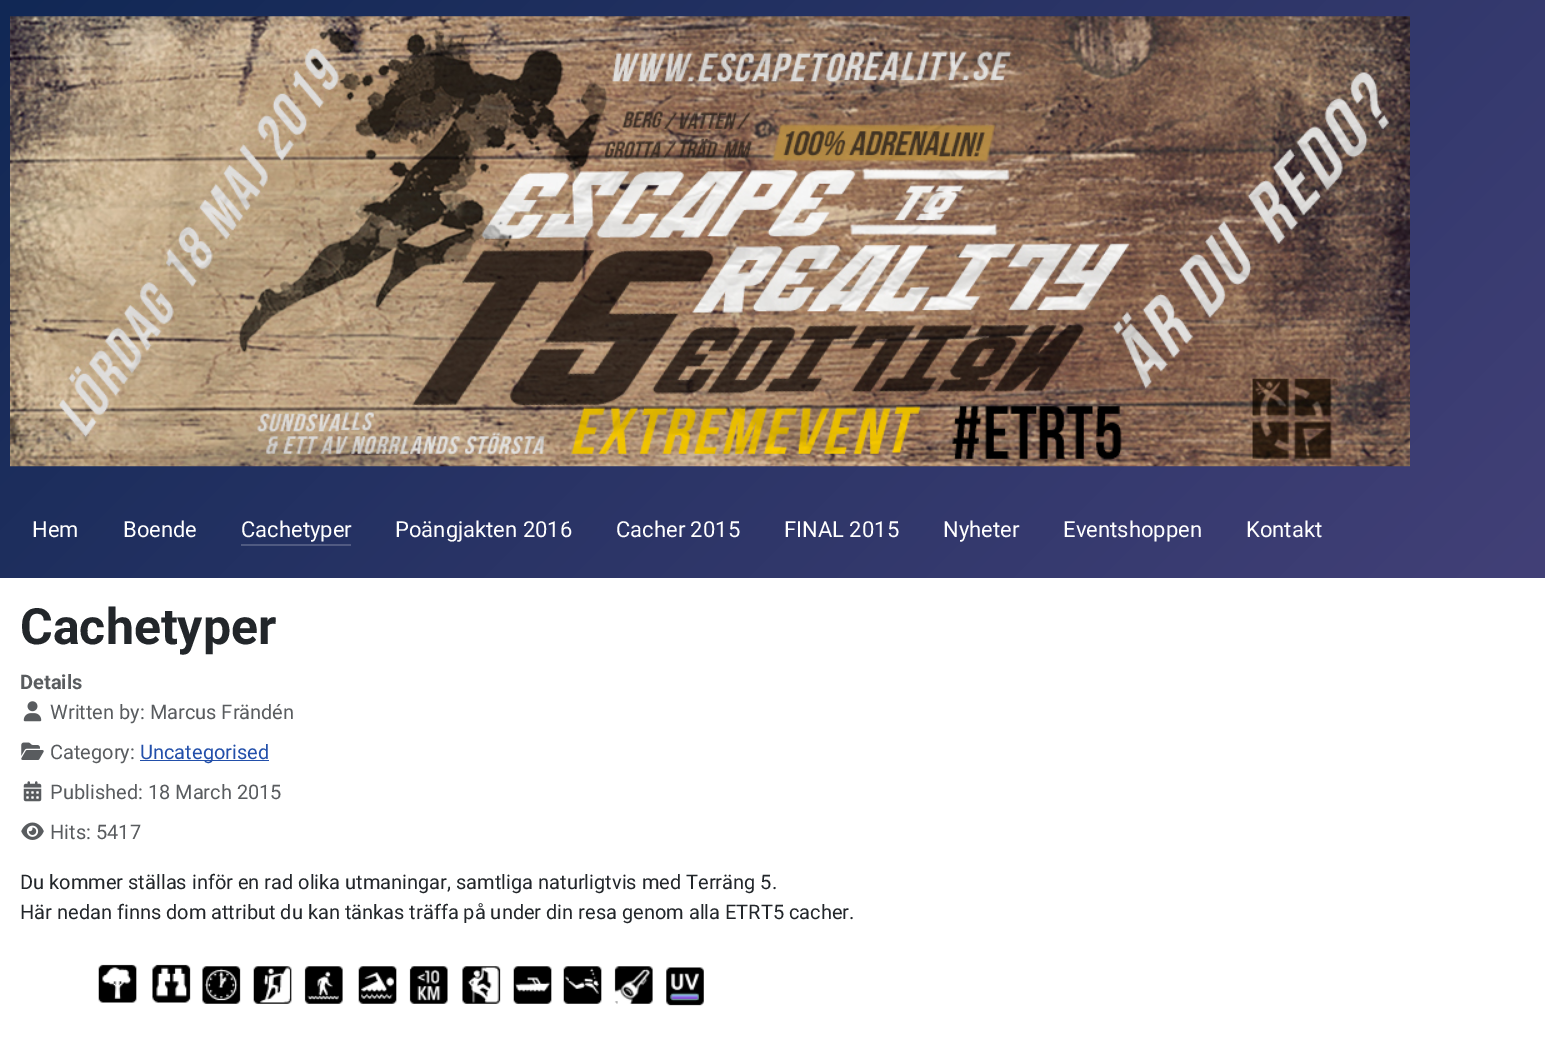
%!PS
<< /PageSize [1545 1049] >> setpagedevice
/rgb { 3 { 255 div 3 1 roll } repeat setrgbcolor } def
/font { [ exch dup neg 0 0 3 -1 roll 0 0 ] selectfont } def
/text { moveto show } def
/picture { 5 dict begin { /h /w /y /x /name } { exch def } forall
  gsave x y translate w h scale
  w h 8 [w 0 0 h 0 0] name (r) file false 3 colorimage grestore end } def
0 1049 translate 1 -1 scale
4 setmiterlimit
255 255 255 rgb
0 0 1545 1049 rectfill
gsave 0 0 moveto 1545 0 rlineto 0 578 rlineto -1545 0 rlineto closepath clip newpath
<< /ShadingType 2 /ColorSpace /DeviceRGB /Coords [242 -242 1303 819] /Extend [true true] /Function << /FunctionType 2 /Domain [0 1] /C0 [0.067 0.157 0.333] /C1 [0.259 0.251 0.467] /N 1 >> >> shfill grestore
gsave 241 544 moveto 110 0 rlineto 0 2 rlineto -110 0 rlineto closepath clip newpath
<< /ShadingType 2 /ColorSpace /DeviceRGB /Coords [242 -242 1303 819] /Extend [true true] /Function << /FunctionType 2 /Domain [0 1] /C0 [0.255 0.325 0.467] /C1 [0.408 0.4 0.573] /N 1 >> >> shfill grestore
(img_01.rgb) 10 16 1400 451 picture
(img_02.rgb) 23 701 19 21 picture
(img_03.rgb) 21 742 23 18 picture
34 79 170 rgb
140 760 129 1 rectfill
(img_04.rgb) 23 781 19 21 picture
(img_05.rgb) 21 822 23 18 picture
(img_06.rgb) 98 964 606 42 picture
/Roboto-Regular 22 font
255 255 255 rgb
(Hem) 32 537 text
(Boende) 123 537 text
(Cachetyper) 241 537 text
(Poängjakten 2016) 395 537 text
(Cacher 2015) 616 537 text
(FINAL 2015) 784 537 text
(Nyheter) 943 537 text
(Eventshoppen) 1063 537 text
(Kontakt) 1246 537 text
/Roboto-Bold 50 font
34 38 42 rgb
(Cachetyper) 20 644 text
/Roboto-Bold 20 font
89 92 95 rgb
(Details) 20 689 text
/Roboto-Regular 20 font
(Written by: Marcus Frändén) 50 719 text
(Category:) 50 759 text
34 79 170 rgb
(Uncategorised) 140 759 text
89 92 95 rgb
(Published: 18 March 2015) 50 799 text
(Hits: 5417) 50 839 text
34 38 42 rgb
(Du kommer ställas inför en rad olika utmaningar, samtliga naturligtvis med Terräng 5.) 20 889 text
(Här nedan finns dom attribut du kan tänkas träffa på under din resa genom alla ETRT5 cacher.) 20 919 text
showpage
